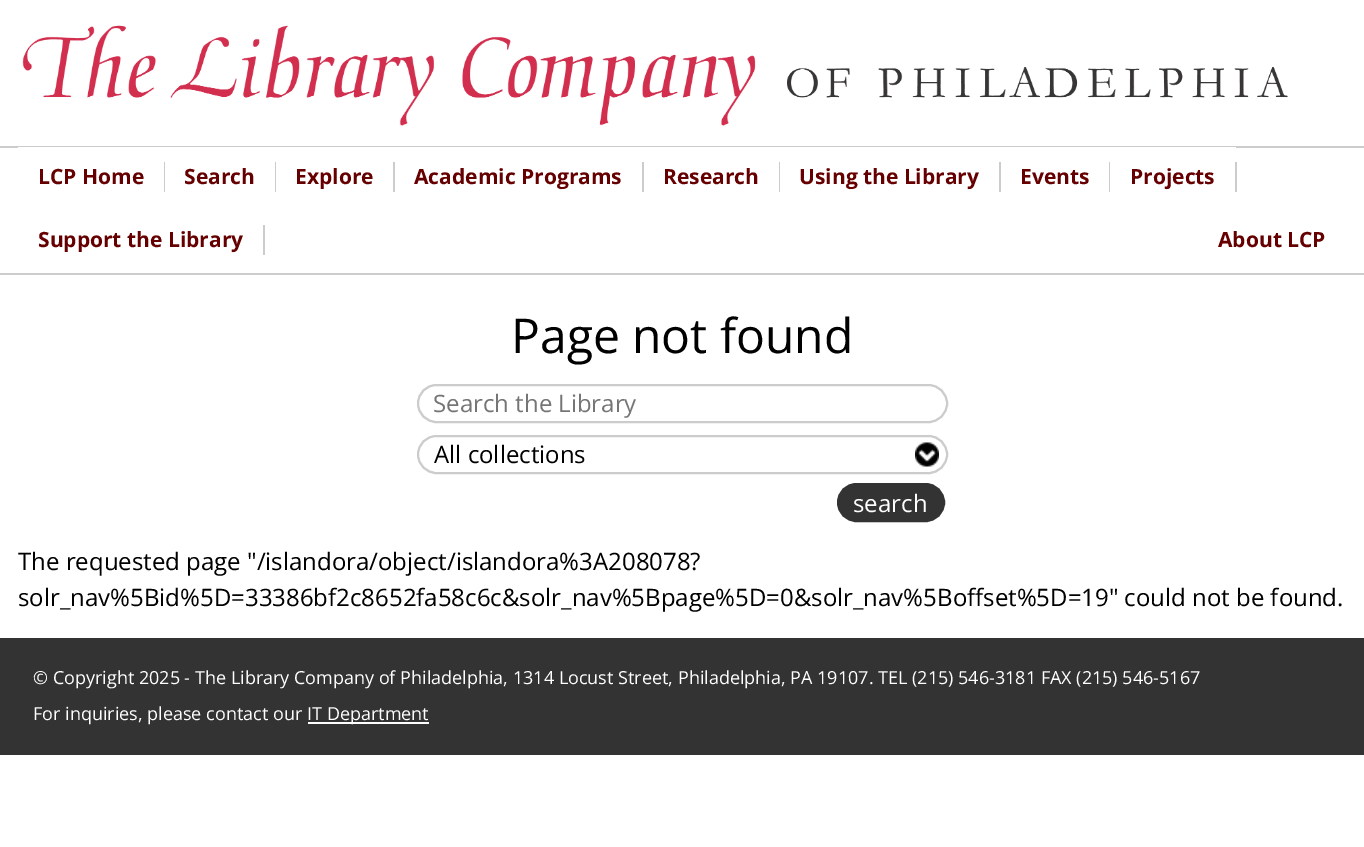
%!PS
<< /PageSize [1364 847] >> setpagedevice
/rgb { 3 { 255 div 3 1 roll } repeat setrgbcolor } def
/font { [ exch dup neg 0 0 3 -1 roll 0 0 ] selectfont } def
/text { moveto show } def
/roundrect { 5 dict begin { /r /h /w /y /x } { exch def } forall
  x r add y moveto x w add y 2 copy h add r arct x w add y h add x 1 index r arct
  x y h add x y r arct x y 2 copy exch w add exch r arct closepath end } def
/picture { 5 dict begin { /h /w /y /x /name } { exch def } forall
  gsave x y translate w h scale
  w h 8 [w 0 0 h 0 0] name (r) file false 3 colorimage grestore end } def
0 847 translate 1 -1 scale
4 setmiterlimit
255 255 255 rgb
0 0 1364 847 rectfill
(img_01.rgb) 22 25 1266 101 picture
204 204 204 rgb
0 146 1364 2 rectfill
0 273 1364 2 rectfill
255 255 255 rgb
18 147 1218 1 rectfill
204 204 204 rgb
164 162 1 30 rectfill
275 162 1 30 rectfill
393 162 2 30 rectfill
642 162 2 30 rectfill
779 162 1 30 rectfill
999 162 2 30 rectfill
1109 162 1 30 rectfill
1235 162 2 30 rectfill
263 225 2 30 rectfill
2 setlinewidth
418 385 529 37 18.5 roundrect stroke
(img_02.rgb) 915 442 24 25 picture
418 436 529 37 18.5 roundrect stroke
51 51 51 rgb
838 484 106 37 18.5 roundrect gsave fill grestore
stroke
0 638 1364 117 rectfill
255 255 255 rgb
308 722 121 2 rectfill
/OpenSans-Bold 21 font
102 0 0 rgb
(LCP Home) 38 184 text
(Search) 184 184 text
(Explore) 295 184 text
(Academic Programs) 414 184 text
(Research) 663 184 text
(Using the Library) 799 184 text
(Events) 1020 184 text
(Projects) 1130 184 text
(Support the Library) 38 247 text
(About LCP) 1218 247 text
/OpenSans-Regular 48 font
0 0 0 rgb
(Page not found) 511 353 text
/OpenSans-Regular 24 font
117 117 117 rgb
(Search the Library) 433 412 text
0 0 0 rgb
(All collections) 434 463 text
255 255 255 rgb
(search) 853 512 text
0 0 0 rgb
(The requested page "/islandora/object/islandora%3A208078?) 18 570 text
(solr_nav%5Bid%5D=33386bf2c8652fa58c6c&solr_nav%5Bpage%5D=0&solr_nav%5Boffset%5D=19" could not be found.) 18 606 text
/OpenSans-Regular 18 font
255 255 255 rgb
(© Copyright 2025 - The Library Company of Philadelphia, 1314 Locust Street, Philadelphia, PA 19107. TEL \(215\) 546-3181 FAX \(215\) 546-5167) 33 684 text
(For inquiries, please contact our) 33 720 text
(IT Department) 307 720 text
showpage
